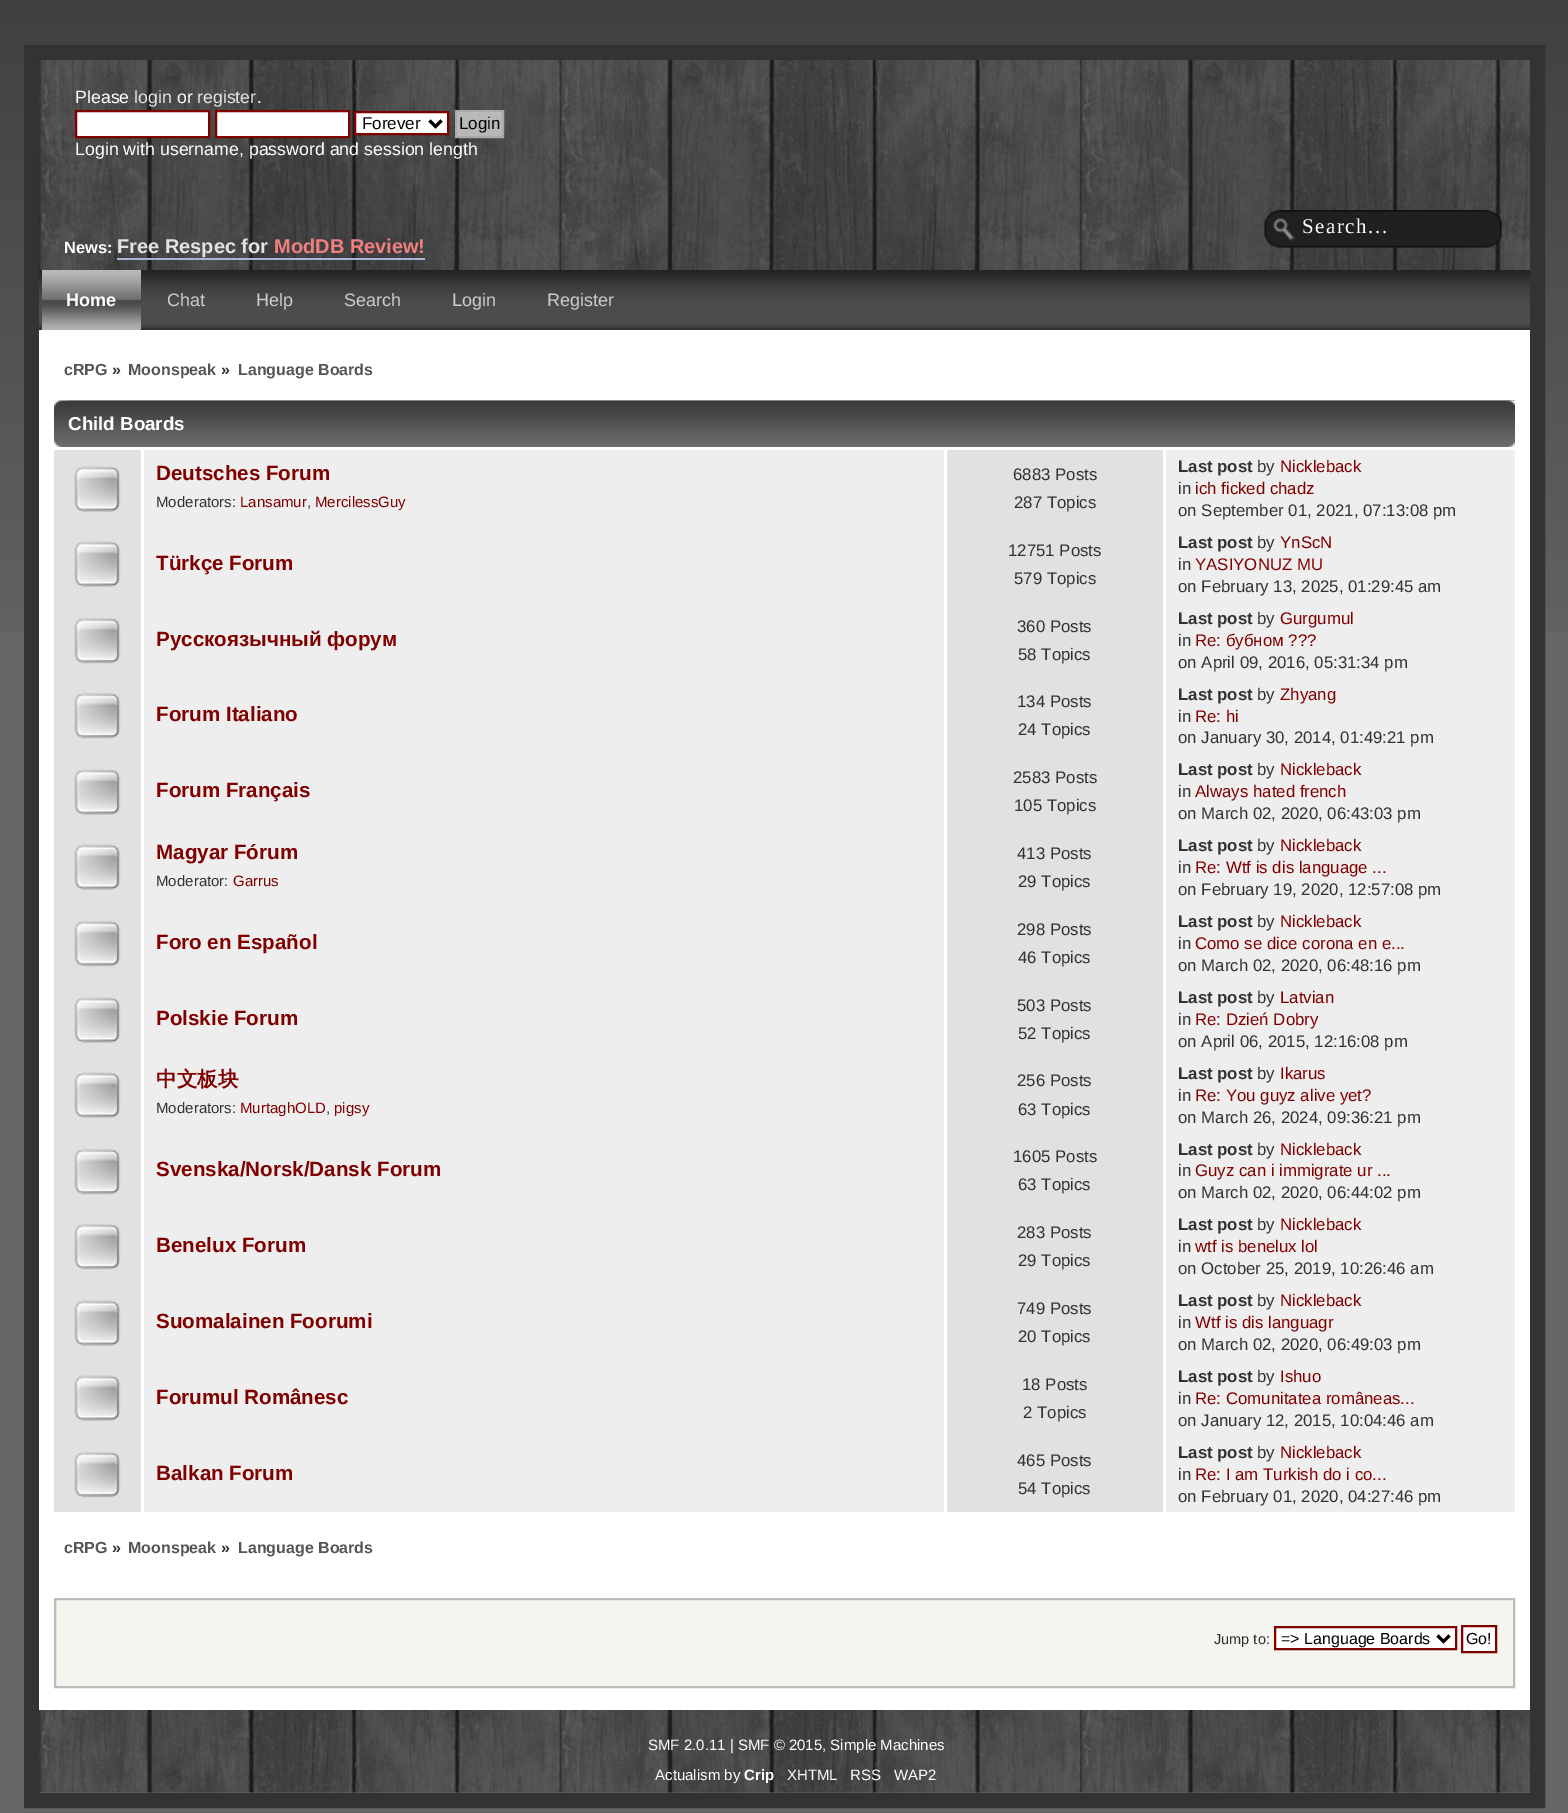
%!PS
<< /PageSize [1568 1813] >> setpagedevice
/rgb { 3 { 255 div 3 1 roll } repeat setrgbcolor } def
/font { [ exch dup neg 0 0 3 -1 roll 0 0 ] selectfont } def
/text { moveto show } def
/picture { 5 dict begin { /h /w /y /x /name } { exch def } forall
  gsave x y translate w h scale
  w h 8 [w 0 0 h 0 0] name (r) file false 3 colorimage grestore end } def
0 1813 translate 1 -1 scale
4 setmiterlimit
102 102 102 rgb
0 0 1568 1813 rectfill
(img_01.rgb) 0 0 1568 631 picture
51 51 51 rgb
15 setlinewidth
31.5 52.5 1506 1748 rectstroke
(img_02.rgb) 39 60 1491 210 picture
255 255 255 rgb
76 111 moveto 133 0 rlineto 0 26 rlineto -133 0 rlineto closepath gsave fill grestore
128 0 0 rgb
2 setlinewidth
stroke
255 255 255 rgb
216 111 moveto 133 0 rlineto 0 26 rlineto -133 0 rlineto closepath gsave fill grestore
128 0 0 rgb
stroke
255 255 255 rgb
355 112 moveto 93 0 rlineto 0 22 rlineto -93 0 rlineto closepath gsave fill grestore
128 0 0 rgb
stroke
0 0 0 rgb
3 setlinewidth
429.5 120.5 moveto 6 6 rlineto 6 -6 rlineto stroke
(img_03.rgb) 457 112 45 24 picture
170 170 170 rgb
2 setlinewidth
456 111 47 26 rectstroke
(img_04.rgb) 1264 210 238 38 picture
168 182 207 rgb
117 258 308 2 rectfill
(img_05.rgb) 39 270 1491 60 picture
(img_06.rgb) 42 270 99 60 picture
255 255 255 rgb
39 330 1491 1380 rectfill
(img_07.rgb) 54 400 1461 47 picture
(img_08.rgb) 67 400 1448 47 picture
238 238 238 rgb
144 450 1371 1062 rectfill
225 225 225 rgb
54 450 87 1062 rectfill
(img_09.rgb) 74 466 47 46 picture
947 450 216 1062 rectfill
(img_09.rgb) 74 541 47 46 picture
(img_10.rgb) 74 618 47 46 picture
(img_10.rgb) 74 693 47 46 picture
(img_09.rgb) 74 769 47 46 picture
(img_09.rgb) 74 844 47 46 picture
(img_10.rgb) 74 921 47 46 picture
(img_09.rgb) 74 997 47 46 picture
(img_09.rgb) 74 1072 47 46 picture
(img_10.rgb) 74 1149 47 46 picture
(img_10.rgb) 74 1224 47 46 picture
(img_09.rgb) 74 1300 47 46 picture
(img_09.rgb) 74 1375 47 46 picture
(img_10.rgb) 74 1452 47 46 picture
255 255 255 rgb
944 449 3 1065 rectfill
1163 449 3 1065 rectfill
245 245 240 rgb
55 1599 moveto 1459 0 rlineto 0 88 rlineto -1459 0 rlineto closepath gsave fill grestore
187 187 187 rgb
stroke
255 255 255 rgb
1275 1627 moveto 181 0 rlineto 0 22 rlineto -181 0 rlineto closepath gsave fill grestore
128 0 0 rgb
stroke
0 0 0 rgb
3 setlinewidth
1437.5 1635.5 moveto 6 6 rlineto 6 -6 rlineto stroke
255 255 255 rgb
1462 1626 moveto 34 0 rlineto 0 26 rlineto -34 0 rlineto closepath gsave fill grestore
128 0 0 rgb
2 setlinewidth
stroke
(img_11.rgb) 39 1710 1491 83 picture
/LiberationSans-Regular 17.75 font
255 255 255 rgb
(Please) 75 103 text
227 227 227 rgb
(login) 134 103 text
255 255 255 rgb
(or) 177 103 text
227 227 227 rgb
(register) 197 103 text
255 255 255 rgb
(.) 257 103 text
/LiberationSans-Regular 17 font
0 0 0 rgb
(Forever) 362 129 text
(Login) 459 129 text
/LiberationSans-Regular 17.75 font
255 255 255 rgb
(Login with username, password and session length) 75 155 text
/LiberationSerif-Regular 21 font
1302 233 moveto 1.5 0 (Search...) ashow
/LiberationSans-Bold 16.5 font
(News:) 64 253 text
/LiberationSans-Bold 20 font
227 227 227 rgb
(Free Respec for) 117 253 text
240 128 128 rgb
(ModDB Review!) 274 253 text
/LiberationSans-Bold 18 font
255 255 255 rgb
(Home) 66 306 text
/LiberationSans-Regular 18 font
204 204 204 rgb
(Chat) 167 306 text
(Help) 256 306 text
(Search) 344 306 text
(Login) 452 306 text
(Register) 547 306 text
/LiberationSans-Bold 16 font
85 85 85 rgb
(cRPG) 64 375 text
50 50 50 rgb
(») 112 375 text
85 85 85 rgb
(Moonspeak) 128 375 text
50 50 50 rgb
(») 221 375 text
85 85 85 rgb
(Language Boards) 238 375 text
/LiberationSans-Bold 18.75 font
255 255 255 rgb
(Child Boards) 68 430 text
/LiberationSans-Bold 20.6 font
128 0 0 rgb
(Deutsches Forum) 156 480 text
/LiberationSans-Regular 15 font
50 50 50 rgb
(Moderators:) 156 507 text
128 0 0 rgb
(Lansamur) 240 507 text
50 50 50 rgb
(,) 307 507 text
128 0 0 rgb
(MercilessGuy) 315 507 text
/LiberationSans-Regular 16.8 font
50 50 50 rgb
(6883 Posts) 1013 480 text
(287 Topics) 1014 508 text
/LiberationSans-Bold 16.8 font
(Last post) 1178 472 text
/LiberationSans-Regular 16.8 font
(by) 1257 472 text
128 0 0 rgb
(Nickleback) 1280 472 text
50 50 50 rgb
(in) 1178 494 text
128 0 0 rgb
(ich ficked chadz) 1195 494 text
50 50 50 rgb
(on September 01, 2021, 07:13:08 pm) 1178 516 text
/LiberationSans-Bold 20.6 font
128 0 0 rgb
(Türkçe Forum) 156 570 text
/LiberationSans-Regular 16.8 font
50 50 50 rgb
(12751 Posts) 1008 556 text
(579 Topics) 1014 584 text
/LiberationSans-Bold 16.8 font
(Last post) 1178 548 text
/LiberationSans-Regular 16.8 font
(by) 1257 548 text
128 0 0 rgb
(YnScN) 1280 548 text
50 50 50 rgb
(in) 1178 570 text
128 0 0 rgb
(YASIYONUZ MU) 1195 570 text
50 50 50 rgb
(on February 13, 2025, 01:29:45 am) 1178 592 text
/LiberationSans-Bold 20.6 font
128 0 0 rgb
(Русскоязычный форум) 156 646 text
/LiberationSans-Regular 16.8 font
50 50 50 rgb
(360 Posts) 1017 632 text
(58 Topics) 1018 660 text
/LiberationSans-Bold 16.8 font
(Last post) 1178 624 text
/LiberationSans-Regular 16.8 font
(by) 1257 624 text
128 0 0 rgb
(Gurgumul) 1280 624 text
50 50 50 rgb
(in) 1178 646 text
128 0 0 rgb
(Re: бубном ???) 1195 646 text
50 50 50 rgb
(on April 09, 2016, 05:31:34 pm) 1178 668 text
/LiberationSans-Bold 20.6 font
128 0 0 rgb
(Forum Italiano) 156 721 text
/LiberationSans-Regular 16.8 font
50 50 50 rgb
(134 Posts) 1017 707 text
(24 Topics) 1018 735 text
/LiberationSans-Bold 16.8 font
(Last post) 1178 700 text
/LiberationSans-Regular 16.8 font
(by) 1257 700 text
128 0 0 rgb
(Zhyang) 1280 700 text
50 50 50 rgb
(in) 1178 722 text
128 0 0 rgb
(Re: hi) 1195 722 text
50 50 50 rgb
(on January 30, 2014, 01:49:21 pm) 1178 743 text
/LiberationSans-Bold 20.6 font
128 0 0 rgb
(Forum Français) 156 797 text
/LiberationSans-Regular 16.8 font
50 50 50 rgb
(2583 Posts) 1013 783 text
(105 Topics) 1014 811 text
/LiberationSans-Bold 16.8 font
(Last post) 1178 775 text
/LiberationSans-Regular 16.8 font
(by) 1257 775 text
128 0 0 rgb
(Nickleback) 1280 775 text
50 50 50 rgb
(in) 1178 797 text
128 0 0 rgb
(Always hated french) 1195 797 text
50 50 50 rgb
(on March 02, 2020, 06:43:03 pm) 1178 819 text
/LiberationSans-Bold 20.6 font
128 0 0 rgb
(Magyar Fórum) 156 859 text
/LiberationSans-Regular 15 font
50 50 50 rgb
(Moderator:) 156 886 text
128 0 0 rgb
(Garrus) 233 886 text
/LiberationSans-Regular 16.8 font
50 50 50 rgb
(413 Posts) 1017 859 text
(29 Topics) 1018 887 text
/LiberationSans-Bold 16.8 font
(Last post) 1178 851 text
/LiberationSans-Regular 16.8 font
(by) 1257 851 text
128 0 0 rgb
(Nickleback) 1280 851 text
50 50 50 rgb
(in) 1178 873 text
128 0 0 rgb
(Re: Wtf is dis language ...) 1195 873 text
50 50 50 rgb
(on February 19, 2020, 12:57:08 pm) 1178 895 text
/LiberationSans-Bold 20.6 font
128 0 0 rgb
(Foro en Español) 156 949 text
/LiberationSans-Regular 16.8 font
50 50 50 rgb
(298 Posts) 1017 935 text
(46 Topics) 1018 963 text
/LiberationSans-Bold 16.8 font
(Last post) 1178 927 text
/LiberationSans-Regular 16.8 font
(by) 1257 927 text
128 0 0 rgb
(Nickleback) 1280 927 text
50 50 50 rgb
(in) 1178 949 text
128 0 0 rgb
(Como se dice corona en e...) 1195 949 text
50 50 50 rgb
(on March 02, 2020, 06:48:16 pm) 1178 971 text
/LiberationSans-Bold 20.6 font
128 0 0 rgb
(Polskie Forum) 156 1025 text
/LiberationSans-Regular 16.8 font
50 50 50 rgb
(503 Posts) 1017 1011 text
(52 Topics) 1018 1039 text
/LiberationSans-Bold 16.8 font
(Last post) 1178 1003 text
/LiberationSans-Regular 16.8 font
(by) 1257 1003 text
128 0 0 rgb
(Latvian) 1280 1003 text
50 50 50 rgb
(in) 1178 1025 text
128 0 0 rgb
(Re: Dzień Dobry) 1195 1025 text
50 50 50 rgb
(on April 06, 2015, 12:16:08 pm) 1178 1047 text
/WenQuanYiZenHei-Bold 20.6 font
128 0 0 rgb
(中文板块) 156 1086 text
/LiberationSans-Regular 15 font
50 50 50 rgb
(Moderators:) 156 1113 text
128 0 0 rgb
(MurtaghOLD) 240 1113 text
50 50 50 rgb
(,) 326 1113 text
128 0 0 rgb
(pigsy) 334 1113 text
/LiberationSans-Regular 16.8 font
50 50 50 rgb
(256 Posts) 1017 1086 text
(63 Topics) 1018 1115 text
/LiberationSans-Bold 16.8 font
(Last post) 1178 1079 text
/LiberationSans-Regular 16.8 font
(by) 1257 1079 text
128 0 0 rgb
(Ikarus) 1280 1079 text
50 50 50 rgb
(in) 1178 1101 text
128 0 0 rgb
(Re: You guyz alive yet?) 1195 1101 text
50 50 50 rgb
(on March 26, 2024, 09:36:21 pm) 1178 1123 text
/LiberationSans-Bold 20.6 font
128 0 0 rgb
(Svenska/Norsk/Dansk Forum) 156 1176 text
/LiberationSans-Regular 16.8 font
50 50 50 rgb
(1605 Posts) 1013 1162 text
(63 Topics) 1018 1190 text
/LiberationSans-Bold 16.8 font
(Last post) 1178 1155 text
/LiberationSans-Regular 16.8 font
(by) 1257 1155 text
128 0 0 rgb
(Nickleback) 1280 1155 text
50 50 50 rgb
(in) 1178 1176 text
128 0 0 rgb
(Guyz can i immigrate ur ...) 1195 1176 text
50 50 50 rgb
(on March 02, 2020, 06:44:02 pm) 1178 1198 text
/LiberationSans-Bold 20.6 font
128 0 0 rgb
(Benelux Forum) 156 1252 text
/LiberationSans-Regular 16.8 font
50 50 50 rgb
(283 Posts) 1017 1238 text
(29 Topics) 1018 1266 text
/LiberationSans-Bold 16.8 font
(Last post) 1178 1230 text
/LiberationSans-Regular 16.8 font
(by) 1257 1230 text
128 0 0 rgb
(Nickleback) 1280 1230 text
50 50 50 rgb
(in) 1178 1252 text
128 0 0 rgb
(wtf is benelux lol) 1195 1252 text
50 50 50 rgb
(on October 25, 2019, 10:26:46 am) 1178 1274 text
/LiberationSans-Bold 20.6 font
128 0 0 rgb
(Suomalainen Foorumi) 156 1328 text
/LiberationSans-Regular 16.8 font
50 50 50 rgb
(749 Posts) 1017 1314 text
(20 Topics) 1018 1342 text
/LiberationSans-Bold 16.8 font
(Last post) 1178 1306 text
/LiberationSans-Regular 16.8 font
(by) 1257 1306 text
128 0 0 rgb
(Nickleback) 1280 1306 text
50 50 50 rgb
(in) 1178 1328 text
128 0 0 rgb
(Wtf is dis languagr) 1195 1328 text
50 50 50 rgb
(on March 02, 2020, 06:49:03 pm) 1178 1350 text
/LiberationSans-Bold 20.6 font
128 0 0 rgb
(Forumul Românesc) 156 1404 text
/LiberationSans-Regular 16.8 font
50 50 50 rgb
(18 Posts) 1022 1390 text
(2 Topics) 1023 1418 text
/LiberationSans-Bold 16.8 font
(Last post) 1178 1382 text
/LiberationSans-Regular 16.8 font
(by) 1257 1382 text
128 0 0 rgb
(Ishuo) 1280 1382 text
50 50 50 rgb
(in) 1178 1404 text
128 0 0 rgb
(Re: Comunitatea româneas...) 1195 1404 text
50 50 50 rgb
(on January 12, 2015, 10:04:46 am) 1178 1426 text
/LiberationSans-Bold 20.6 font
128 0 0 rgb
(Balkan Forum) 156 1480 text
/LiberationSans-Regular 16.8 font
50 50 50 rgb
(465 Posts) 1017 1466 text
(54 Topics) 1018 1494 text
/LiberationSans-Bold 16.8 font
(Last post) 1178 1458 text
/LiberationSans-Regular 16.8 font
(by) 1257 1458 text
128 0 0 rgb
(Nickleback) 1280 1458 text
50 50 50 rgb
(in) 1178 1480 text
128 0 0 rgb
(Re: I am Turkish do i co...) 1195 1480 text
50 50 50 rgb
(on February 01, 2020, 04:27:46 pm) 1178 1502 text
/LiberationSans-Bold 16 font
85 85 85 rgb
(cRPG) 64 1553 text
50 50 50 rgb
(») 112 1553 text
85 85 85 rgb
(Moonspeak) 128 1553 text
50 50 50 rgb
(») 221 1553 text
85 85 85 rgb
(Language Boards) 238 1553 text
/LiberationSans-Regular 14.5 font
50 50 50 rgb
(Jump to:) 1214 1644 text
/LiberationSans-Regular 16 font
0 0 0 rgb
(=> Language Boards) 1281 1644 text
(Go!) 1466 1644 text
/LiberationSans-Regular 15 font
255 255 255 rgb
(SMF 2.0.11 | SMF © 2015, Simple Machines) 648 1750 text
(Actualism by) 655 1780 text
/LiberationSans-Bold 15 font
(Crip) 744 1780 text
/LiberationSans-Regular 15 font
(XHTML) 787 1780 text
(RSS) 850 1780 text
(WAP2) 894 1780 text
showpage
